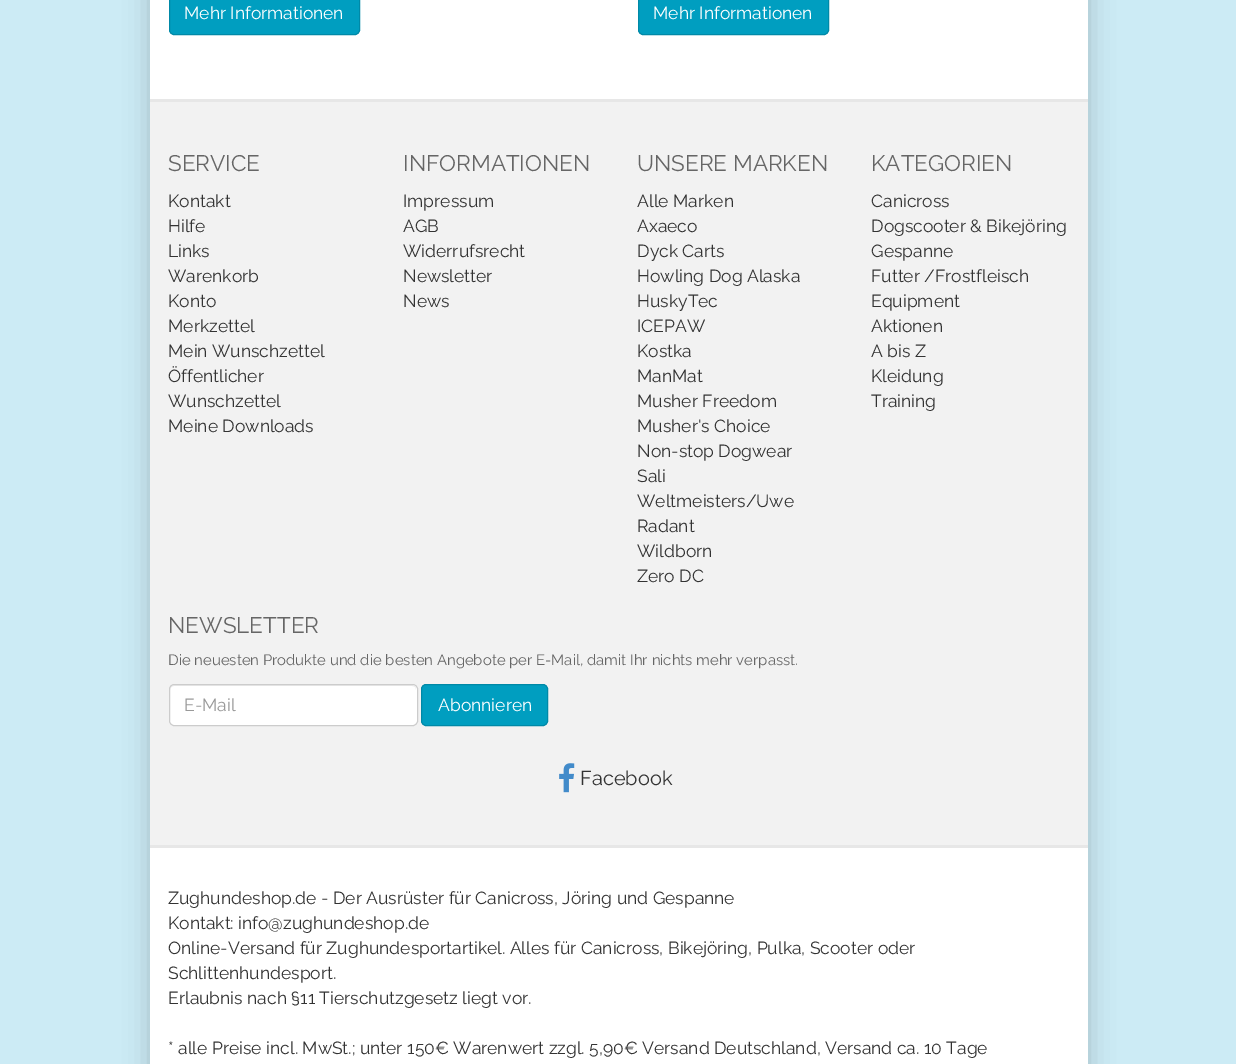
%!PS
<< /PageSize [1236 1064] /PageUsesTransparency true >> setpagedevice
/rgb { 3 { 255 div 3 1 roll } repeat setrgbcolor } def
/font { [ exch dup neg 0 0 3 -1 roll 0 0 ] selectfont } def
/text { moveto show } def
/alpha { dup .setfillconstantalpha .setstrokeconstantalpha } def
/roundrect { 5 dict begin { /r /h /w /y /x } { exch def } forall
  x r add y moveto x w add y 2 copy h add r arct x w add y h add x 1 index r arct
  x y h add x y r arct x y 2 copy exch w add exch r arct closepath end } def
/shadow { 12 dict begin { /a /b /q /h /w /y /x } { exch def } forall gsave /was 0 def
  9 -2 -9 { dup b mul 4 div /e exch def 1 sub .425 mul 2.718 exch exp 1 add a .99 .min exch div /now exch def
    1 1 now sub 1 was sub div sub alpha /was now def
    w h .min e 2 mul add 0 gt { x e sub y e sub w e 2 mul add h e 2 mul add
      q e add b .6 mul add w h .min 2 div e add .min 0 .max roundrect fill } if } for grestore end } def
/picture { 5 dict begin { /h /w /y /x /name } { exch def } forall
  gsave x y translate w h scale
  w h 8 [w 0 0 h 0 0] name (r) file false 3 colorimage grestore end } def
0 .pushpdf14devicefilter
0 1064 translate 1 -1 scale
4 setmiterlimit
204 235 245 rgb
0 0 1236 1064 rectfill
0 0 0 rgb
150 -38 938 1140 0 12.5 0.2 shadow
255 255 255 rgb
150 0 938 99 rectfill
0 158 192 rgb
169.5 -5.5 190 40 4.5 roundrect gsave fill grestore
0 137 167 rgb
stroke
0 158 192 rgb
638.5 -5.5 190 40 4.5 roundrect gsave fill grestore
0 137 167 rgb
stroke
242 242 242 rgb
150 102 938 743 rectfill
231 231 231 rgb
150 99 938 3 rectfill
150 845 938 3 rectfill
255 255 255 rgb
169 684 249 42 5 roundrect fill
236 236 236 rgb
174 686 moveto 238 0 rlineto 3 0 4 2 4 4 rcurveto 0 -1 rlineto 0 -2 -2 -4 -4 -4 rcurveto -238 0 rlineto -2 0 -4 2 -4 4 rcurveto 0 1 rlineto 0 -2 2 -4 4 -4 rcurveto closepath fill
204 204 204 rgb
169.5 684.5 248 41 4.5 roundrect stroke
0 158 192 rgb
421.5 684.5 126 41 4.5 roundrect gsave fill grestore
0 137 167 rgb
stroke
(img_01.rgb) 559 763 16 30 picture
255 255 255 rgb
150 848 938 216 rectfill
/Raleway-Regular 17.5 font
(Mehr Informationen) 184 19 text
(Mehr Informationen) 653 19 text
/Raleway-Regular 22.5 font
102 102 102 rgb
(SERVICE) 168 171 text
/Raleway-Regular 17.5 font
51 51 51 rgb
(Kontakt) 168 207 text
(Hilfe) 168 232 text
(Links) 168 257 text
(Warenkorb) 168 282 text
(Konto) 168 307 text
(Merkzettel) 168 332 text
(Mein Wunschzettel) 168 357 text
(Öffentlicher) 168 382 text
(Wunschzettel) 168 407 text
(Meine Downloads) 168 432 text
/Raleway-Regular 22.5 font
102 102 102 rgb
(INFORMATIONEN) 403 171 text
/Raleway-Regular 17.5 font
51 51 51 rgb
(Impressum) 403 207 text
(AGB) 403 232 text
(Widerrufsrecht) 403 257 text
(Newsletter) 403 282 text
(News) 403 307 text
/Raleway-Regular 22.5 font
102 102 102 rgb
(UNSERE MARKEN) 637 171 text
/Raleway-Regular 17.5 font
51 51 51 rgb
(Alle Marken) 637 207 text
(Axaeco) 637 232 text
(Dyck Carts) 637 257 text
(Howling Dog Alaska) 637 282 text
(HuskyTec) 637 307 text
(ICEPAW) 637 332 text
(Kostka) 637 357 text
(ManMat) 637 382 text
(Musher Freedom) 637 407 text
(Musher's Choice) 637 432 text
(Non-stop Dogwear) 637 457 text
(Sali) 637 482 text
(Weltmeisters/Uwe) 637 507 text
(Radant) 637 532 text
(Wildborn) 637 557 text
(Zero DC) 637 582 text
/Raleway-Regular 22.5 font
102 102 102 rgb
(KATEGORIEN) 871 171 text
/Raleway-Regular 17.5 font
51 51 51 rgb
(Canicross) 871 207 text
(Dogscooter & Bikejöring) 871 232 text
(Gespanne) 871 257 text
(Futter /Frostfleisch) 871 282 text
(Equipment) 871 307 text
(Aktionen) 871 332 text
(A bis Z) 871 357 text
(Kleidung) 871 382 text
(Training) 871 407 text
/Raleway-Regular 22.5 font
102 102 102 rgb
(NEWSLETTER) 168 633 text
/Raleway-Regular 14.9 font
(Die neuesten Produkte und die besten Angebote per E-Mail, damit Ihr nichts mehr verpasst.) 168 665 text
/Raleway-Regular 17.5 font
153 153 153 rgb
(E-Mail) 184 711 text
255 255 255 rgb
(Abonnieren) 438 711 text
/Raleway-Regular 20 font
51 51 51 rgb
(Facebook) 580 785 text
/Raleway-Regular 17.5 font
(Zughundeshop.de - Der Ausrüster für Canicross, Jöring und Gespanne) 168 904 text
(Kontakt: info@zughundeshop.de) 168 929 text
(Online-Versand für Zughundesportartikel. Alles für Canicross, Bikejöring, Pulka, Scooter oder) 168 954 text
(Schlittenhundesport.) 168 979 text
(Erlaubnis nach §11 Tierschutzgesetz liegt vor.) 168 1004 text
(* alle Preise incl. MwSt.; unter 150€ Warenwert zzgl. 5,90€ Versand Deutschland, Versand ca. 10 Tage) 168 1054 text
.poppdf14devicefilter showpage
